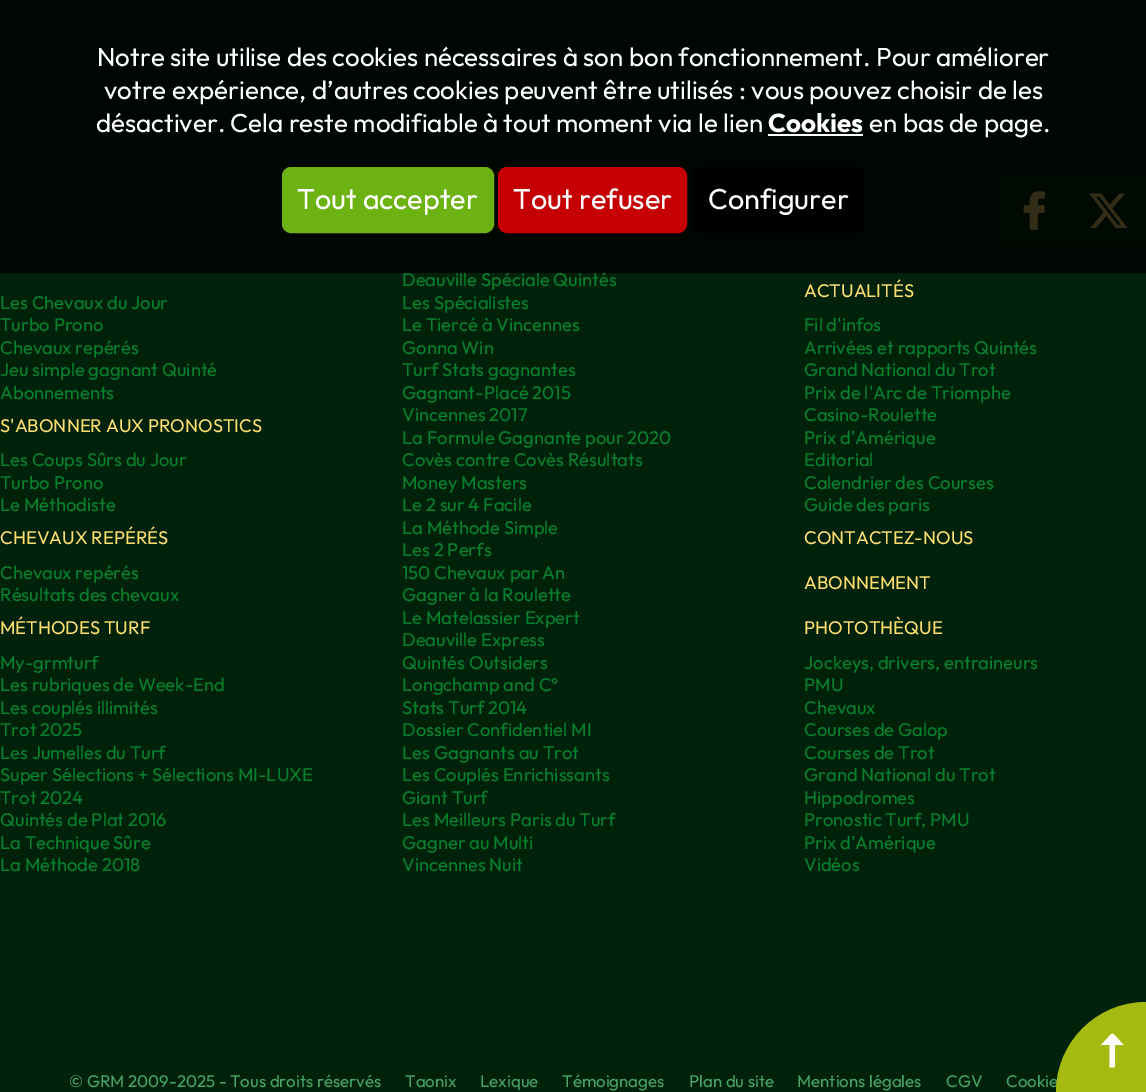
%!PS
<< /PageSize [1146 1092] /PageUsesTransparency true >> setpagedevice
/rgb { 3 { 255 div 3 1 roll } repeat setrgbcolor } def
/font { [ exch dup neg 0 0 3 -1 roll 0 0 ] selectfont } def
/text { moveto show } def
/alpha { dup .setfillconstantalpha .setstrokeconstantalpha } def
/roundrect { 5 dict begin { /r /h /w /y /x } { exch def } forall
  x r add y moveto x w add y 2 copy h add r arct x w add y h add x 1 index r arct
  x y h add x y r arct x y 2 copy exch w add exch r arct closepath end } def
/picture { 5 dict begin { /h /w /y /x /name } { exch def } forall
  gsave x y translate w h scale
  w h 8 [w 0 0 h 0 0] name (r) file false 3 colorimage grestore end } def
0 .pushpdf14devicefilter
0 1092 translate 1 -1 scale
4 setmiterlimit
0 33 10 rgb
0 0 1146 1092 rectfill
0 49 16 rgb
998 176 148 70 rectfill
(img_01.rgb) 1023 191 22 39 picture
(img_02.rgb) 1089 193 39 36 picture
/Outfit-Regular 18.4 font
7 129 46 rgb
(Deauville Spéciale Quintés) 402 286 text
0.8 alpha
0 0 0 rgb
0 0 1146 273 rectfill
1 alpha
693 167 171 66 9 roundrect fill
/Outfit-Regular 28.75 font
255 255 255 rgb
(Configurer) 708 209 text
198 0 2 rgb
499.5 168.5 186 63 7.5 roundrect gsave fill grestore
3 setlinewidth
stroke
255 255 255 rgb
(Tout refuser) 513 209 text
109 178 19 rgb
283.5 168.5 209 63 7.5 roundrect gsave fill grestore
stroke
255 255 255 rgb
(Tout accepter) 297 209 text
/Outfit-Regular 26 font
(en bas de page.) 869 132 text
/Outfit-Bold 26 font
(Cookies) 768 132 text
768 134 95 2 rectfill
/Outfit-Regular 26 font
(désactiver. Cela reste modifiable à tout moment via le lien) 96 132 text
(votre expérience, d’autres cookies peuvent être utilisés : vous pouvez choisir de les) 104 99 text
(Notre site utilise des cookies nécessaires à son bon fonctionnement. Pour améliorer) 97 66 text
/Outfit-Regular 18.4 font
7 129 46 rgb
(Les Spécialistes) 402 309 text
(Le Tiercé à Vincennes) 402 331 text
(Gonna Win) 402 354 text
(Turf Stats gagnantes) 402 376 text
(Gagnant-Placé 2015) 402 399 text
(Vincennes 2017) 402 421 text
(La Formule Gagnante pour 2020) 402 444 text
(Covès contre Covès Résultats) 402 466 text
(Money Masters) 402 489 text
(Le 2 sur 4 Facile) 402 511 text
(La Méthode Simple) 402 534 text
(Les 2 Perfs) 402 556 text
(150 Chevaux par An) 402 579 text
(Gagner à la Roulette) 402 601 text
(Le Matelassier Expert) 402 624 text
(Deauville Express) 402 646 text
(My-grmturf) 0 669 text
(Quintés Outsiders) 402 669 text
(Les rubriques de Week-End) 0 691 text
(Longchamp and C°) 402 691 text
(Les couplés illimités) 0 714 text
(Stats Turf 2014) 402 714 text
(Trot 2025) 0 736 text
(Dossier Confidentiel MI) 402 736 text
(Les Jumelles du Turf) 0 759 text
(Les Gagnants au Trot) 402 759 text
(Super Sélections + Sélections MI-LUXE) 0 781 text
(Les Couplés Enrichissants) 402 781 text
(Trot 2024) 0 804 text
(Giant Turf) 402 804 text
(Quintés de Plat 2016) 0 826 text
(Les Meilleurs Paris du Turf) 402 826 text
(La Technique Sûre) 0 849 text
(Gagner au Multi) 402 849 text
(La Méthode 2018) 0 871 text
(Vincennes Nuit) 402 871 text
255 222 112 rgb
(ACTUALITÉS) 804 297 text
7 129 46 rgb
(Les Chevaux du Jour) 0 309 text
(Turbo Prono) 0 331 text
(Chevaux repérés) 0 354 text
(Jeu simple gagnant Quinté) 0 376 text
(Abonnements) 0 399 text
(Fil d'infos) 804 331 text
(Arrivées et rapports Quintés) 804 354 text
(Grand National du Trot) 804 376 text
(Prix de l'Arc de Triomphe) 804 399 text
(Casino-Roulette) 804 421 text
(Prix d'Amérique) 804 444 text
(Editorial) 804 466 text
(Calendrier des Courses) 804 489 text
(Guide des paris) 804 511 text
255 222 112 rgb
(S'ABONNER AUX PRONOSTICS) 0 432 text
7 129 46 rgb
(Les Coups Sûrs du Jour) 0 466 text
(Turbo Prono) 0 489 text
(Le Méthodiste) 0 511 text
255 222 112 rgb
(CHEVAUX REPÉRÉS) 0 544 text
(CONTACTEZ-NOUS) 804 544 text
7 129 46 rgb
(Chevaux repérés) 0 579 text
(Résultats des chevaux) 0 601 text
255 222 112 rgb
(ABONNEMENT) 804 589 text
(MÉTHODES TURF) 0 634 text
(PHOTOTHÈQUE) 804 634 text
7 129 46 rgb
(Jockeys, drivers, entraineurs) 804 669 text
(PMU) 804 691 text
(Chevaux) 804 714 text
(Courses de Galop) 804 736 text
(Courses de Trot) 804 759 text
(Grand National du Trot) 804 781 text
(Hippodromes) 804 804 text
(Pronostic Turf, PMU) 804 826 text
(Prix d’Amérique) 804 849 text
(Vidéos) 804 871 text
/Outfit-Regular 16.9 font
72 164 101 rgb
(© GRM 2009-2025 - Tous droits réservés) 69 1087 text
(Taonix) 405 1087 text
(Lexique) 480 1087 text
(Témoignages) 562 1087 text
(Plan du site) 689 1087 text
(Mentions légales) 797 1087 text
(CGV) 946 1087 text
(Cookie) 1006 1087 text
165 187 17 rgb
1146 1002 moveto 0 90 rlineto -90 0 rlineto 0 -49.5 40.5 -90 90 -90 rcurveto closepath fill
255 255 255 rgb
1101 1045 moveto 6.5 -7 rlineto 4 -4 4 -6 8 -2 rcurveto 8 9 rlineto -8.5 0 rlineto 0 22.5 rlineto -5.5 0 rlineto 0 -22.5 rlineto closepath fill
.poppdf14devicefilter showpage
